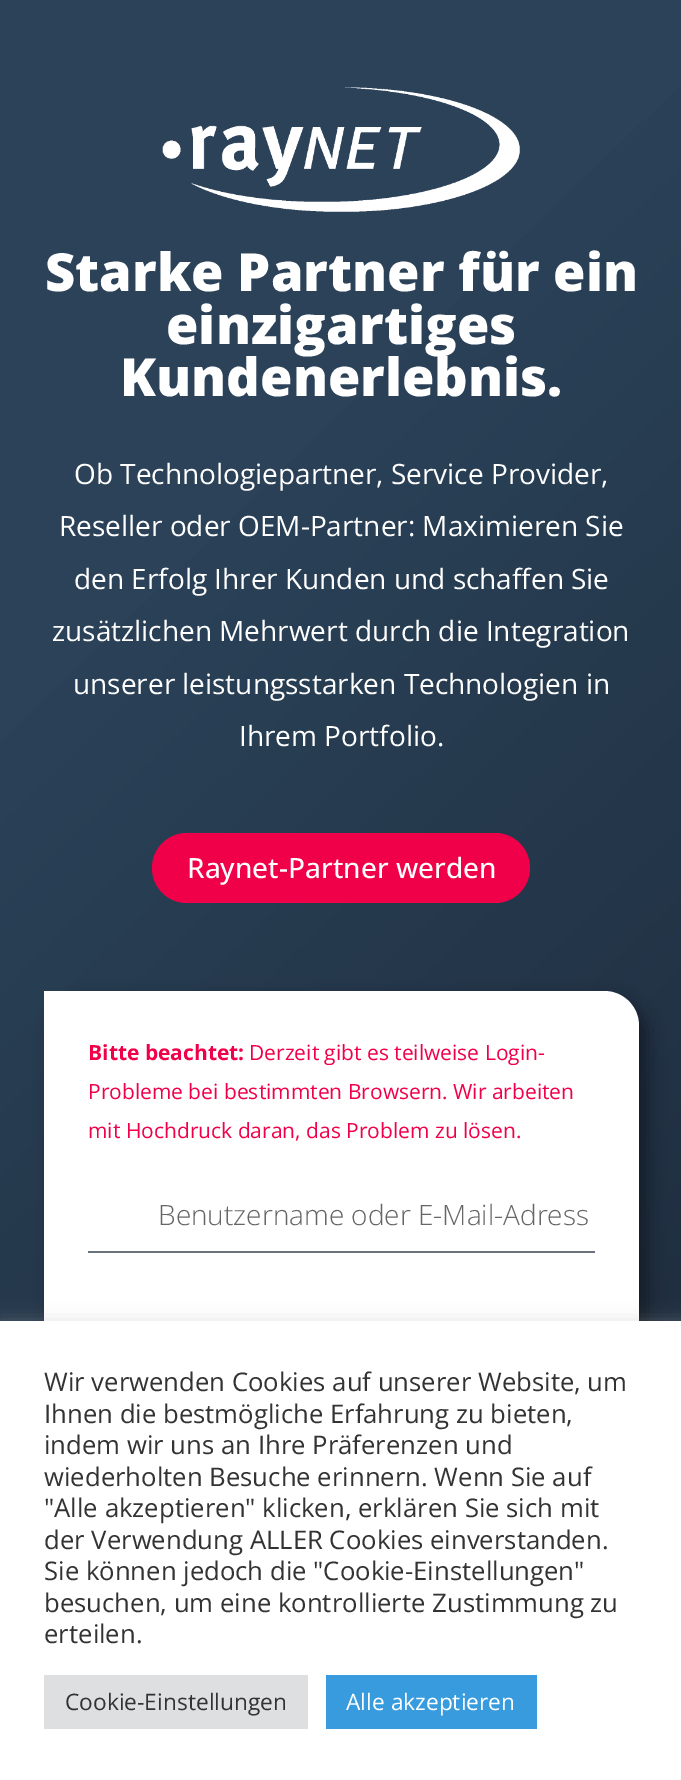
%!PS
<< /PageSize [681 1780] /PageUsesTransparency true >> setpagedevice
/rgb { 3 { 255 div 3 1 roll } repeat setrgbcolor } def
/font { [ exch dup neg 0 0 3 -1 roll 0 0 ] selectfont } def
/text { moveto show } def
/alpha { dup .setfillconstantalpha .setstrokeconstantalpha } def
/roundrect { 5 dict begin { /r /h /w /y /x } { exch def } forall
  x r add y moveto x w add y 2 copy h add r arct x w add y h add x 1 index r arct
  x y h add x y r arct x y 2 copy exch w add exch r arct closepath end } def
/shadow { 12 dict begin { /a /b /q /h /w /y /x } { exch def } forall gsave /was 0 def
  9 -2 -9 { dup b mul 4 div /e exch def 1 sub .425 mul 2.718 exch exp 1 add a .99 .min exch div /now exch def
    1 1 now sub 1 was sub div sub alpha /was now def
    w h .min e 2 mul add 0 gt { x e sub y e sub w e 2 mul add h e 2 mul add
      q e add b .6 mul add w h .min 2 div e add .min 0 .max roundrect fill } if } for grestore end } def
/picture { 5 dict begin { /h /w /y /x /name } { exch def } forall
  gsave x y translate w h scale
  w h 8 [w 0 0 h 0 0] name (r) file false 3 colorimage grestore end } def
0 .pushpdf14devicefilter
0 1780 translate 1 -1 scale
4 setmiterlimit
255 255 255 rgb
0 0 681 1780 rectfill
gsave 0 0 moveto 681 0 rlineto 0 1321 rlineto -681 0 rlineto closepath clip newpath
<< /ShadingType 2 /ColorSpace /DeviceRGB /Coords [-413 399 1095 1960] /Extend [true true] /Function << /FunctionType 3 /Domain [0 1] /Functions [<< /FunctionType 2 /Domain [0 1] /C0 [0.169 0.259 0.349] /C1 [0.169 0.259 0.349] /N 1 >> << /FunctionType 2 /Domain [0 1] /C0 [0.169 0.259 0.349] /C1 [0.082 0.125 0.169] /N 1 >>] /Bounds [0.23] /Encode [0 1 0 1] >> >> shfill grestore
(img_01.rgb) 162 87 358 125 picture
240 0 72 rgb
152 833 378 70 35 roundrect fill
0 0 0 rgb
53 999 595 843 35 9 0.38 shadow
255 255 255 rgb
44 991 moveto 560 0 rlineto 19.5 0 35 15.5 35 35 rcurveto 0 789 rlineto -595 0 rlineto closepath fill
105 114 125 rgb
88 1251 507 2 rectfill
172 171 171 rgb
0 1320 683 460 0 9 0.3 shadow
255 255 255 rgb
0 1321 681 459 rectfill
222 223 224 rgb
44 1675 264 54 rectfill
55 155 221 rgb
326 1675 211 54 rectfill
/OpenSans-ExtraBold 52.5 font
255 255 255 rgb
(Starke Partner für ein) 45 291 text
(einzigartiges) 166 344 text
(Kundenerlebnis.) 120 396 text
/OpenSans-Regular 28 font
(Ob Technologiepartner, Service Provider,) 74 484 text
(Reseller oder OEM-Partner: Maximieren Sie) 59 536 text
(den Erfolg Ihrer Kunden und schaffen Sie) 74 589 text
(zusätzlichen Mehrwert durch die Integration) 52 641 text
(unserer leistungsstarken Technologien in) 73 694 text
(Ihrem Portfolio.) 239 746 text
/OpenSans-Medium 28 font
(Raynet-Partner werden) 187 878 text
/OpenSans-Bold 21 font
240 0 72 rgb
(Bitte beachtet:) 88 1060 text
/OpenSans-Regular 21 font
(Derzeit gibt es teilweise Login-) 249 1060 text
(Probleme bei bestimmten Browsern. Wir arbeiten) 88 1099 text
(mit Hochdruck daran, das Problem zu lösen.) 88 1138 text
/OpenSans-Light 28 font
102 102 102 rgb
(Benutzername oder E-Mail-Adress) 158 1225 text
/OpenSans-Regular 25.7 font
51 51 51 rgb
(Wir verwenden Cookies auf unserer Website, um) 44 1391 text
(Ihnen die bestmögliche Erfahrung zu bieten,) 44 1423 text
(indem wir uns an Ihre Präferenzen und) 44 1454 text
(wiederholten Besuche erinnern. Wenn Sie auf) 44 1486 text
("Alle akzeptieren" klicken, erklären Sie sich mit) 44 1517 text
(der Verwendung ALLER Cookies einverstanden.) 44 1549 text
(Sie können jedoch die "Cookie-Einstellungen") 44 1580 text
(besuchen, um eine kontrollierte Zustimmung zu) 44 1612 text
(erteilen.) 44 1643 text
/OpenSans-Regular 22.75 font
(Cookie-Einstellungen) 65 1710 text
255 255 255 rgb
(Alle akzeptieren) 346 1710 text
.poppdf14devicefilter showpage
